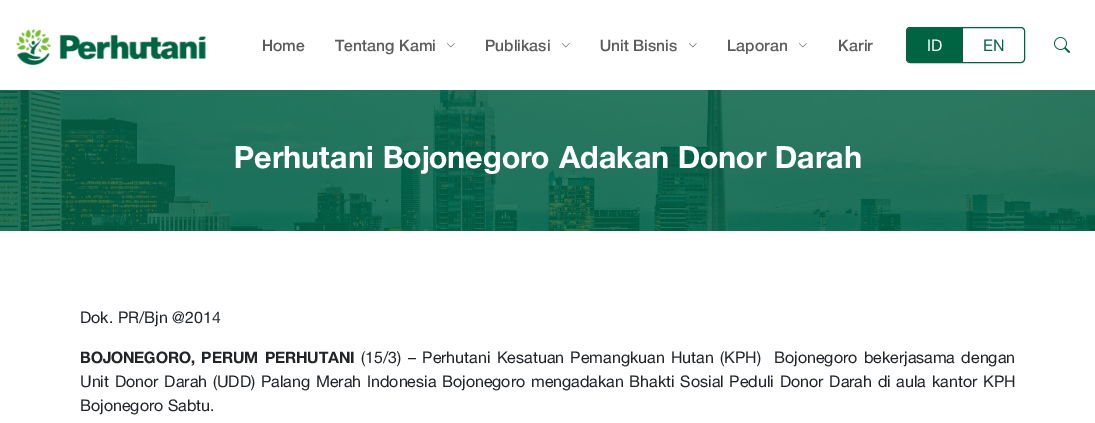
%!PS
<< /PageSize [1095 423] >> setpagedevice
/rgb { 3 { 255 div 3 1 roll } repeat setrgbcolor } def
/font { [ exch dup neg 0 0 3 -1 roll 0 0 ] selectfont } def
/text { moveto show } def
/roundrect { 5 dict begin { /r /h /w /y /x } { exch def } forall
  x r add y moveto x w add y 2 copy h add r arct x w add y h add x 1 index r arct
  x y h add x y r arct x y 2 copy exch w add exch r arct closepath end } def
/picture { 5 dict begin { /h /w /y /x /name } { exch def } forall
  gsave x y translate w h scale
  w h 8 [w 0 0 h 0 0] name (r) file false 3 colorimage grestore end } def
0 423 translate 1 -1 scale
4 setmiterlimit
255 255 255 rgb
0 0 1095 423 rectfill
(img_01.rgb) 16 29 191 36 picture
(img_02.rgb) 447 43 8 5 picture
(img_02.rgb) 562 43 8 5 picture
(img_02.rgb) 689 43 8 5 picture
(img_02.rgb) 799 43 8 5 picture
0 99 66 rgb
906.5 27.5 118 35 3.5 roundrect stroke
910 28 moveto 53 0 rlineto 0 34 rlineto -53 0 rlineto -1.5 0 -3 -1.5 -3 -3 rcurveto 0 -28 rlineto 0 -1.5 1.5 -3 3 -3 rcurveto closepath fill
(img_03.rgb) 1054 37 16 16 picture
0 90 1095 141 rectfill
(img_04.rgb) 0 90 1095 141 picture
/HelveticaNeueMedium-Medium 16 font
92 92 92 rgb
(Home) 262 51 text
(Tentang Kami) 335 51 text
(Publikasi) 485 51 text
(Unit Bisnis) 600 51 text
(Laporan) 727 51 text
(Karir) 838 51 text
/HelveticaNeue-Regular 16 font
255 255 255 rgb
(ID) 927 51 text
0 99 66 rgb
(EN) 983 51 text
/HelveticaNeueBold-Bold 31.05 font
255 255 255 rgb
(Perhutani Bojonegoro Adakan Donor Darah) 234 168 text
/HelveticaNeue-Regular 16 font
33 37 41 rgb
(Dok. PR/Bjn @2014) 80 323 text
/HelveticaNeueBold-Bold 16 font
80 363 moveto 2 0 32 (BOJONEGORO, PERUM PERHUTANI) widthshow
/HelveticaNeue-Regular 16 font
361 363 moveto 2 0 32 (\(15/3\) – Perhutani Kesatuan Pemangkuan Hutan \(KPH\)  Bojonegoro bekerjasama dengan) widthshow
80 387 moveto 1.3 0 32 (Unit Donor Darah \(UDD\) Palang Merah Indonesia Bojonegoro mengadakan Bhakti Sosial Peduli Donor Darah di aula kantor KPH) widthshow
(Bojonegoro Sabtu.) 80 411 text
showpage
